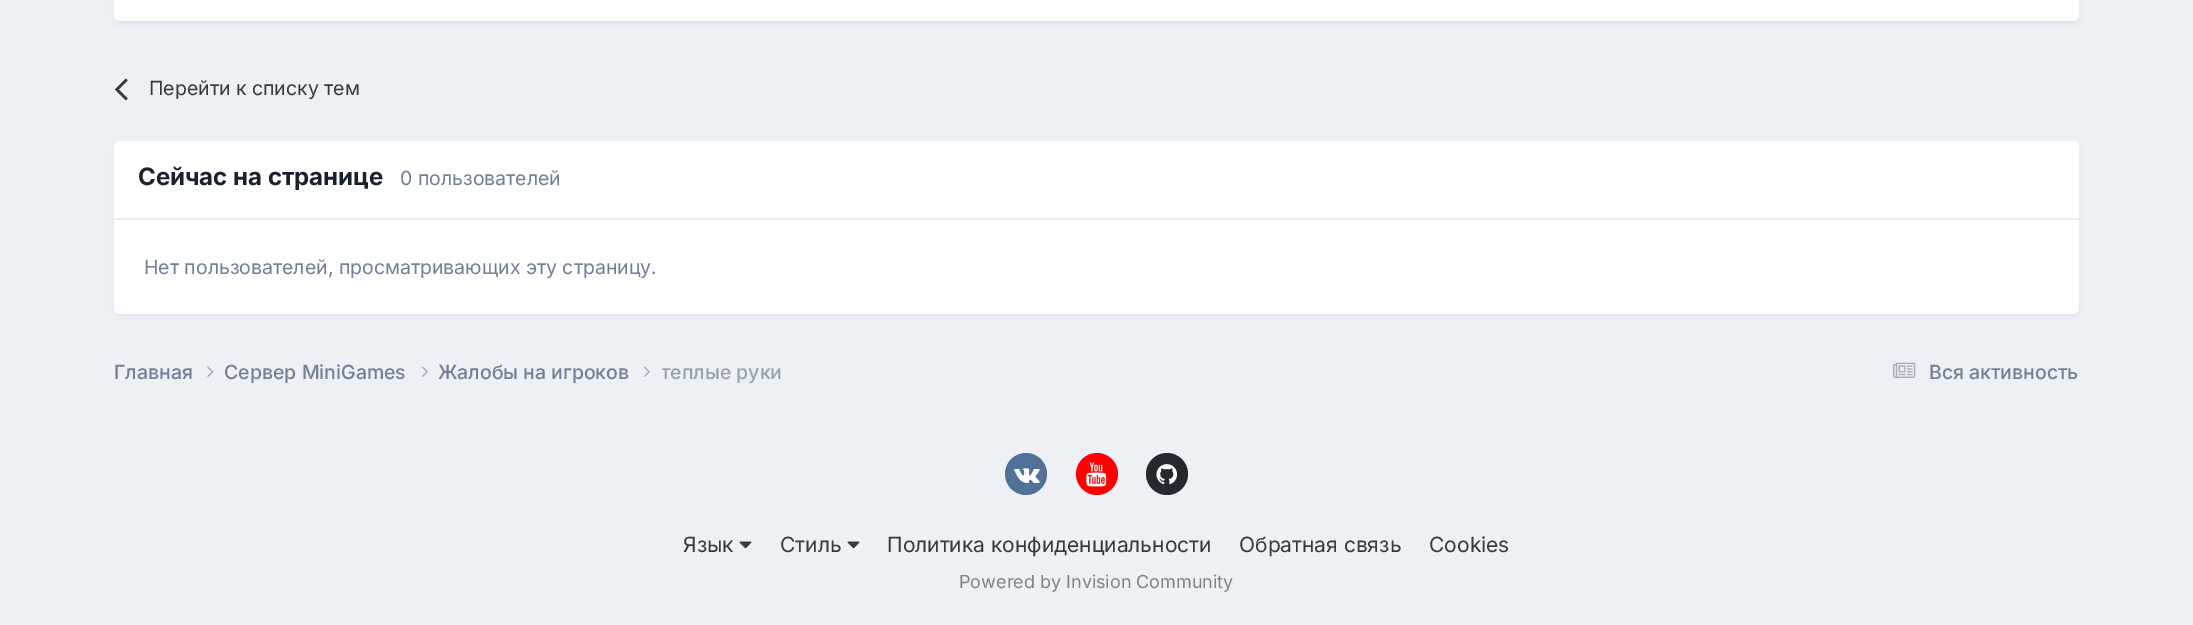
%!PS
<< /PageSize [2193 625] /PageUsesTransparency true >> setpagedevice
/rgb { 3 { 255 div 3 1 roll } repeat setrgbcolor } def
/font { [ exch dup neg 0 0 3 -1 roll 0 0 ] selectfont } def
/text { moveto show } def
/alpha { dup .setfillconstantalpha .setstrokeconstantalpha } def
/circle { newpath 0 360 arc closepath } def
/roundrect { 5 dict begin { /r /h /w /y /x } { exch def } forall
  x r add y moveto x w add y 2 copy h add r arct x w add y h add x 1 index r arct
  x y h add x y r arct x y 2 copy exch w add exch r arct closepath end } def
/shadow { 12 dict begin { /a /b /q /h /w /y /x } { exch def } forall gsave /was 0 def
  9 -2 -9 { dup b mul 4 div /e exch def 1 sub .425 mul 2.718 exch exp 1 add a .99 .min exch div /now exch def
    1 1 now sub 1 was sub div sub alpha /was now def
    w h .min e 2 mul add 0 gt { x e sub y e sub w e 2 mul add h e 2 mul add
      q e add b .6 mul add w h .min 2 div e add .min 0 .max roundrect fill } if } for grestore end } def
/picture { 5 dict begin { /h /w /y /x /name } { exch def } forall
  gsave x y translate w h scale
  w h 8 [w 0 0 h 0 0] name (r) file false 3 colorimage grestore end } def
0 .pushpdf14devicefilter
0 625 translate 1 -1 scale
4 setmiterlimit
237 240 244 rgb
0 0 2193 625 rectfill
45 55 72 rgb
116 -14 1962 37 5 3 0.1 shadow
255 255 255 rgb
114 -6 1965 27 6 roundrect fill
(img_01.rgb) 115 78 13 23 picture
45 55 72 rgb
116 146 1962 169 5 3 0.1 shadow
255 255 255 rgb
114 141 1965 173 6 roundrect fill
120 141 moveto 1953 0 rlineto 3.5 0 6 2.5 6 6 rcurveto 0 72 rlineto -1965 0 rlineto 0 -72 rlineto 0 -3.5 2.5 -6 6 -6 rcurveto closepath fill
234 236 239 rgb
114 218 1965 2 rectfill
(img_02.rgb) 207 366 7 11 picture
(img_03.rgb) 421 366 7 11 picture
(img_03.rgb) 643 366 7 11 picture
(img_04.rgb) 1893 362 23 16 picture
80 114 153 rgb
1026 474 21 circle fill
(img_05.rgb) 1014 468 26 15 picture
255 0 0 rgb
1097 474 21 circle fill
(img_06.rgb) 1086 462 21 25 picture
36 41 47 rgb
1167 474 21 circle fill
(img_07.rgb) 1156 464 22 21 picture
(img_08.rgb) 739 541 13 8 picture
(img_08.rgb) 847 541 13 8 picture
/Inter-Regular 19.5 font
53 60 65 rgb
(Перейти к списку тем) 149 95 text
/Inter-Bold 24 font
26 32 44 rgb
(Сейчас на странице) 138 185 text
/Inter-Regular 19.5 font
113 128 150 rgb
(0 пользователей) 400 185 text
(Нет пользователей, просматривающих эту страницу.) 144 274 text
/Inter-Medium 19.5 font
(Главная) 114 379 text
(Сервер MiniGames) 224 379 text
(Жалобы на игроков) 438 379 text
gsave
662 357 120 30 rectclip
150 162 178 rgb
(теплые руки) 661 379 text
grestore
(Вся активность) 1929 379 text
/Inter-Regular 21 font
53 60 65 rgb
(Язык) 683 552 text
(Стиль) 780 552 text
(Политика конфиденциальности) 887 552 text
(Обратная связь) 1239 552 text
(Cookies) 1429 552 text
/Inter-Regular 18 font
127 132 137 rgb
(Powered by Invision Community) 959 588 text
.poppdf14devicefilter showpage
